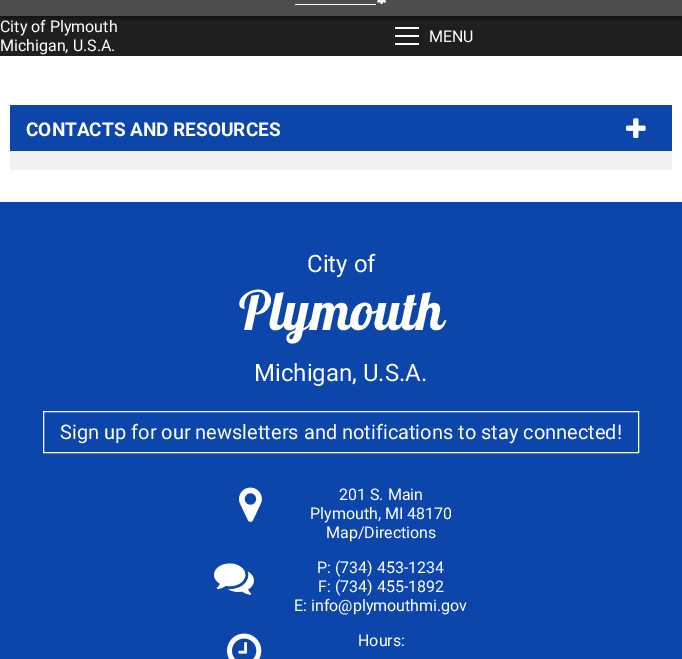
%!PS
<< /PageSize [682 659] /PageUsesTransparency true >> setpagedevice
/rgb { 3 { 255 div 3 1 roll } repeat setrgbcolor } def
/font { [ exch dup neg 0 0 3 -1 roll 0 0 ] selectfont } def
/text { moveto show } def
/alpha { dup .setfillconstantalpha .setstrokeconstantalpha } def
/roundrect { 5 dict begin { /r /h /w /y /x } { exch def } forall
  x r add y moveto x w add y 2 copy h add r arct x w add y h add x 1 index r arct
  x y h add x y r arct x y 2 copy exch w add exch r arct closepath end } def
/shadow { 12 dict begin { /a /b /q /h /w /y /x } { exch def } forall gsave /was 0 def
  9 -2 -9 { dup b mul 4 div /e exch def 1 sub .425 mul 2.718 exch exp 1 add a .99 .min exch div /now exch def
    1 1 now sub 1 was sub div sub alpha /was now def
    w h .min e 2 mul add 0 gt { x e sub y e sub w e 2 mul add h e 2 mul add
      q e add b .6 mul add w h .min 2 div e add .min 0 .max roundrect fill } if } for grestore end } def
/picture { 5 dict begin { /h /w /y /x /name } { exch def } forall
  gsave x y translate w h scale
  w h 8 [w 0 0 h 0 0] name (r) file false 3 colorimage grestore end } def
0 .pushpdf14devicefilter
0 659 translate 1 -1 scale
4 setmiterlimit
255 255 255 rgb
0 0 682 659 rectfill
31 31 31 rgb
0 16 682 40 rectfill
255 255 255 rgb
395 27 24 2 rectfill
0 0 0 rgb
0 -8 682 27 0 2.5 0.4 shadow
77 77 77 rgb
0 0 682 16 rectfill
(img_01.rgb) 377 0 10 4 picture
255 255 255 rgb
295 4 81 1 rectfill
395 35 24 2 rectfill
395 43 24 2 rectfill
241 241 241 rgb
10 151 662 19 rectfill
13 70 170 rgb
10 105 662 46 rectfill
(img_02.rgb) 626 118 20 20 picture
0 202 682 457 rectfill
255 255 255 rgb
43.5 411.5 595 41 rectstroke
(img_03.rgb) 239 487 23 35 picture
(img_04.rgb) 214 563 40 32 picture
(img_05.rgb) 227 633 35 26 picture
/Roboto-Regular 16 font
(City of Plymouth) 0 32 text
(Michigan, U.S.A.) 0 51 text
(MENU) 429 42 text
/Roboto-Bold 19 font
(CONTACTS AND RESOURCES) 26 136 text
/Roboto-Regular 24 font
(City of) 307 272 text
/Galada-Regular 54 font
(Plymouth) 239 330 text
/Roboto-Regular 24 font
(Michigan, U.S.A.) 254 381 text
/Roboto-Regular 20 font
(Sign up for our newsletters and notifications to stay connected!) 60 439 text
/Roboto-Regular 16 font
(201 S. Main) 339 500 text
(Plymouth, MI 48170) 310 519 text
(Map/Directions) 326 538 text
(P: \(734\) 453-1234) 317 573 text
(F: \(734\) 455-1892) 318 592 text
(E: info@plymouthmi.gov) 294 611 text
(Hours:) 358 646 text
.poppdf14devicefilter showpage
